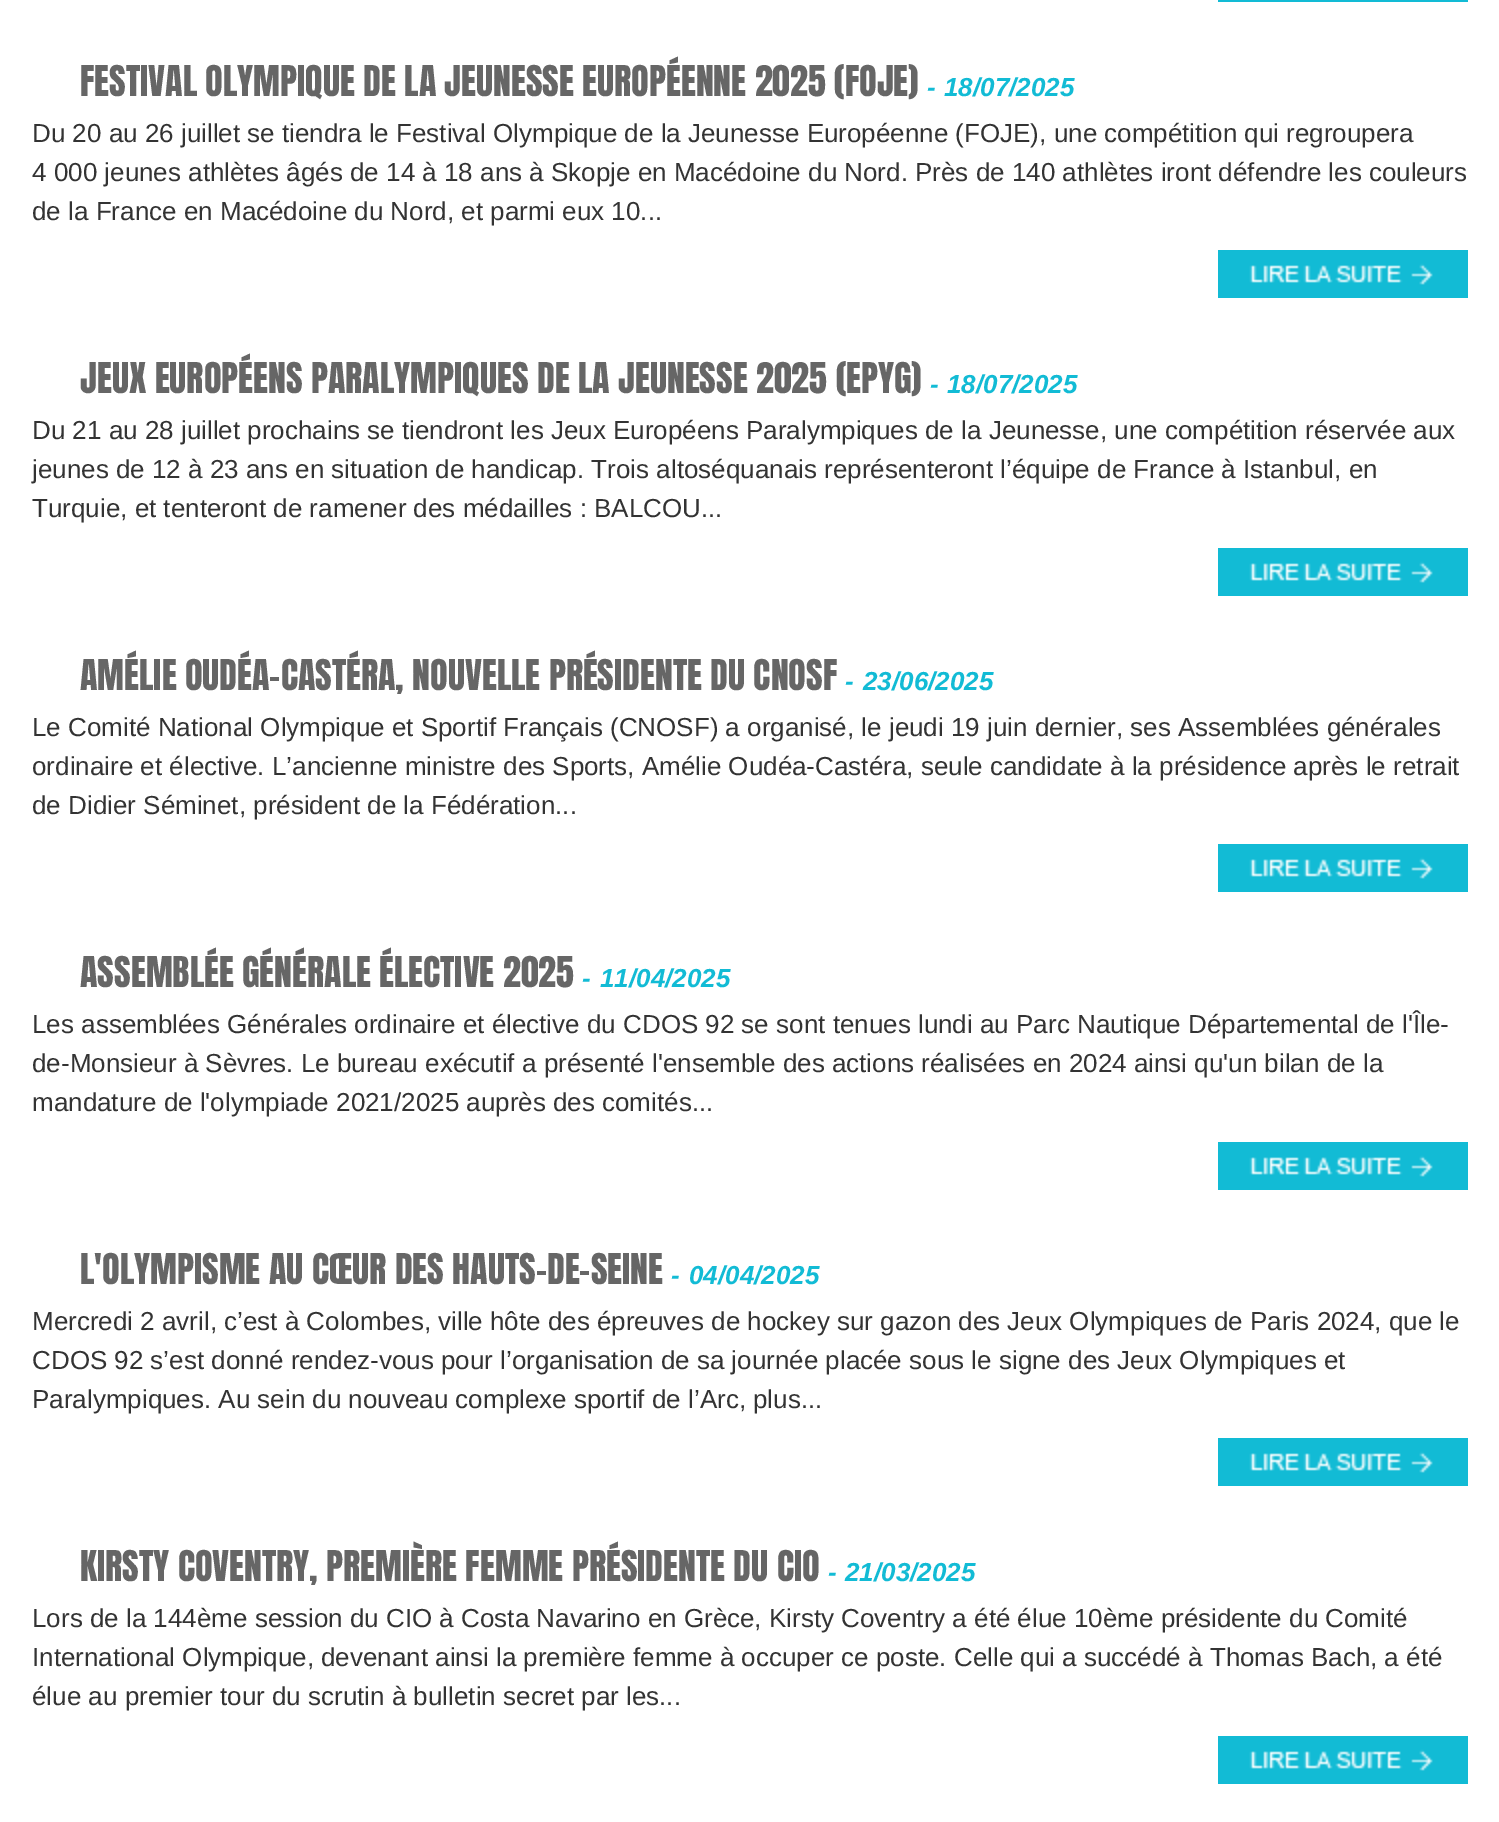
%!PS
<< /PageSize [1499 1822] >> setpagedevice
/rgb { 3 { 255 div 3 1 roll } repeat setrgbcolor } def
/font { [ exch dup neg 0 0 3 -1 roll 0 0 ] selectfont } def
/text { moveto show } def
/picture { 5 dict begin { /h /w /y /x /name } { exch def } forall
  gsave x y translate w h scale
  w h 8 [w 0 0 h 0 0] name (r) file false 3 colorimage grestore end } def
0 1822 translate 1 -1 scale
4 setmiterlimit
255 255 255 rgb
0 0 1499 1822 rectfill
18 187 213 rgb
1218 0 250 2 rectfill
(img_01.rgb) 1218 250 250 48 picture
(img_01.rgb) 1218 548 250 48 picture
(img_01.rgb) 1218 844 250 48 picture
(img_01.rgb) 1218 1142 250 48 picture
(img_01.rgb) 1218 1438 250 48 picture
(img_01.rgb) 1218 1736 250 48 picture
/Anton-Regular 36 font
102 102 102 rgb
(FESTIVAL OLYMPIQUE DE LA JEUNESSE EUROPÉENNE 2025 \(FOJE\)) 80 96 text
/LiberationSans-BoldItalic 26 font
18 187 213 rgb
(-) 927 96 text
(18/07/2025) 944 96 text
/LiberationSans-Regular 26 font
51 51 51 rgb
(Du 20 au 26 juillet se tiendra le Festival Olympique de la Jeunesse Européenne \(FOJE\), une compétition qui regroupera) 32 142 text
(4 000 jeunes athlètes âgés de 14 à 18 ans à Skopje en Macédoine du Nord. Près de 140 athlètes iront défendre les couleurs) 32 181 text
(de la France en Macédoine du Nord, et parmi eux 10...) 32 220 text
/Anton-Regular 36 font
102 102 102 rgb
(JEUX EUROPÉENS PARALYMPIQUES DE LA JEUNESSE 2025 \(EPYG\)) 80 393 text
/LiberationSans-BoldItalic 26 font
18 187 213 rgb
(-) 930 393 text
(18/07/2025) 947 393 text
/LiberationSans-Regular 26 font
51 51 51 rgb
(Du 21 au 28 juillet prochains se tiendront les Jeux Européens Paralympiques de la Jeunesse, une compétition réservée aux) 32 439 text
(jeunes de 12 à 23 ans en situation de handicap. Trois altoséquanais représenteront l’équipe de France à Istanbul, en) 32 478 text
(Turquie, et tenteront de ramener des médailles : BALCOU...) 32 517 text
/Anton-Regular 36 font
102 102 102 rgb
(AMÉLIE OUDÉA-CASTÉRA, NOUVELLE PRÉSIDENTE DU CNOSF) 80 690 text
/LiberationSans-BoldItalic 26 font
18 187 213 rgb
(-) 845 690 text
(23/06/2025) 863 690 text
/LiberationSans-Regular 26 font
51 51 51 rgb
(Le Comité National Olympique et Sportif Français \(CNOSF\) a organisé, le jeudi 19 juin dernier, ses Assemblées générales) 32 736 text
(ordinaire et élective. L’ancienne ministre des Sports, Amélie Oudéa-Castéra, seule candidate à la présidence après le retrait) 32 775 text
(de Didier Séminet, président de la Fédération...) 32 814 text
/Anton-Regular 36 font
102 102 102 rgb
(ASSEMBLÉE GÉNÉRALE ÉLECTIVE 2025) 80 987 text
/LiberationSans-BoldItalic 26 font
18 187 213 rgb
(-) 582 987 text
(11/04/2025) 600 987 text
/LiberationSans-Regular 26 font
51 51 51 rgb
(Les assemblées Générales ordinaire et élective du CDOS 92 se sont tenues lundi au Parc Nautique Départemental de l'Île-) 32 1033 text
(de-Monsieur à Sèvres. Le bureau exécutif a présenté l'ensemble des actions réalisées en 2024 ainsi qu'un bilan de la) 32 1072 text
(mandature de l'olympiade 2021/2025 auprès des comités...) 32 1111 text
/Anton-Regular 36 font
102 102 102 rgb
(L'OLYMPISME AU CŒUR DES HAUTS-DE-SEINE) 80 1284 text
/LiberationSans-BoldItalic 26 font
18 187 213 rgb
(-) 671 1284 text
(04/04/2025) 689 1284 text
/LiberationSans-Regular 26 font
51 51 51 rgb
(Mercredi 2 avril, c’est à Colombes, ville hôte des épreuves de hockey sur gazon des Jeux Olympiques de Paris 2024, que le) 32 1330 text
(CDOS 92 s’est donné rendez-vous pour l’organisation de sa journée placée sous le signe des Jeux Olympiques et) 32 1369 text
(Paralympiques. Au sein du nouveau complexe sportif de l’Arc, plus...) 32 1408 text
/Anton-Regular 36 font
102 102 102 rgb
(KIRSTY COVENTRY, PREMIÈRE FEMME PRÉSIDENTE DU CIO) 80 1581 text
/LiberationSans-BoldItalic 26 font
18 187 213 rgb
(-) 828 1581 text
(21/03/2025) 845 1581 text
/LiberationSans-Regular 26 font
51 51 51 rgb
(Lors de la 144ème session du CIO à Costa Navarino en Grèce, Kirsty Coventry a été élue 10ème présidente du Comité) 32 1627 text
(International Olympique, devenant ainsi la première femme à occuper ce poste. Celle qui a succédé à Thomas Bach, a été) 32 1666 text
(élue au premier tour du scrutin à bulletin secret par les...) 32 1705 text
showpage
